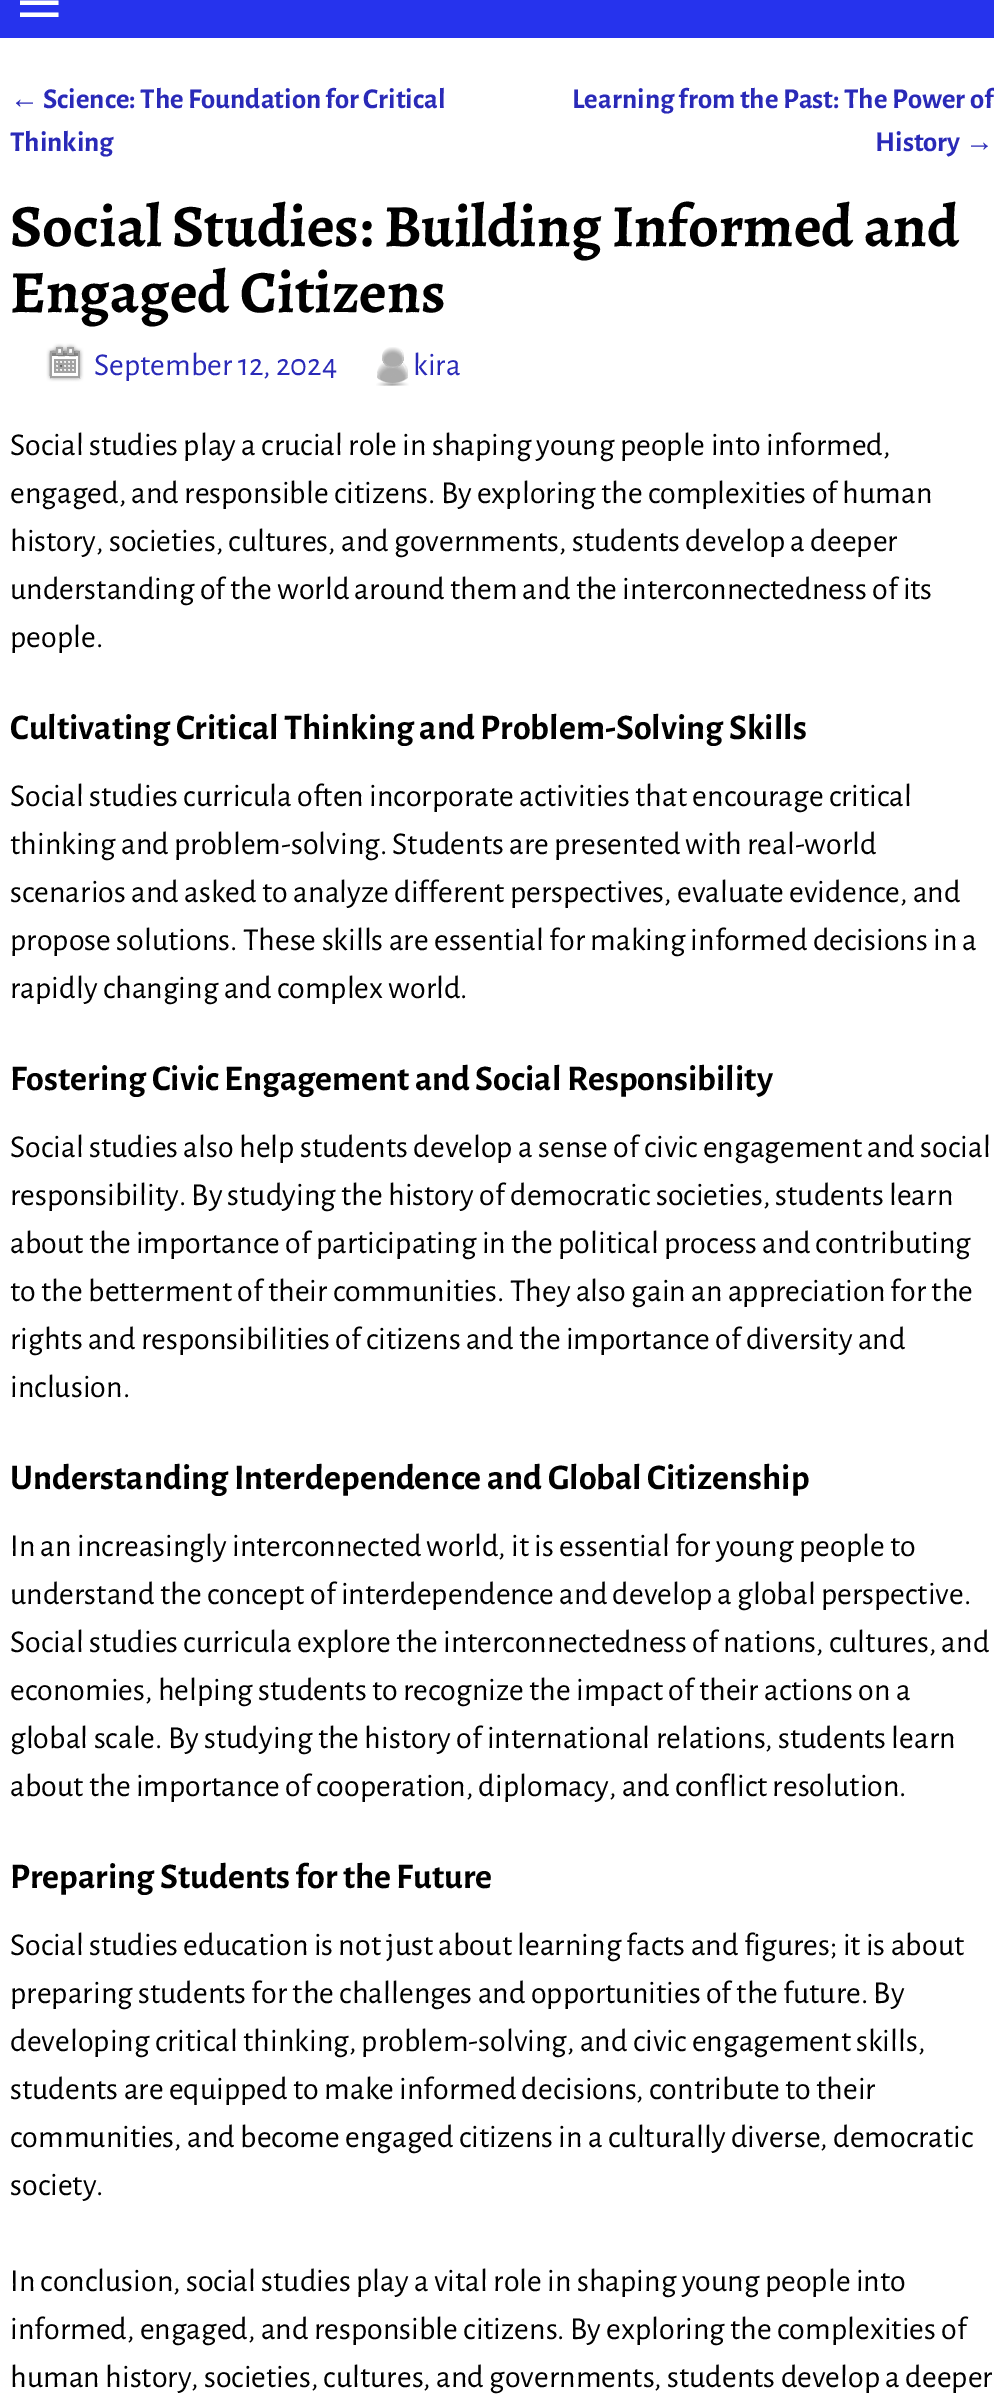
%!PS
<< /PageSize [994 2403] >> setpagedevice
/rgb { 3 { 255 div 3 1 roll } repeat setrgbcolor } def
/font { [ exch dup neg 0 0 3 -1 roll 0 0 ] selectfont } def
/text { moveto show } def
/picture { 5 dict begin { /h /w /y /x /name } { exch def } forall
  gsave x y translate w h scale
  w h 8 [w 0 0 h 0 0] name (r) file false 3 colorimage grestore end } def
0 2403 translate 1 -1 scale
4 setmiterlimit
255 255 255 rgb
0 0 994 2403 rectfill
38 51 237 rgb
0 0 994 38 rectfill
255 255 255 rgb
20 17 moveto 0 -4.5 rlineto 38.5 0 rlineto 0 4.5 rlineto closepath 20 -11.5 moveto 38.5 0 rlineto 0 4.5 rlineto -38.5 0 rlineto closepath 20 5 moveto 0 -4.5 rlineto 38.5 0 rlineto 0 4.5 rlineto closepath fill
(img_01.rgb) 46 343 38 39 picture
(img_02.rgb) 376 347 33 39 picture
/LiberationSans-Regular 28.75 font
42 42 184 rgb
(←) 10 108 text
/AlegreyaSans-Bold 28.75 font
(Science: The Foundation for Critical) 43 108 text
(Thinking) 10 151 text
(Learning from the Past: The Power of) 572 108 text
(History) 875 151 text
/LiberationSans-Regular 28.75 font
(→) 965 151 text
/Alegreya-Bold 60 font
0 0 0 rgb
(Social Studies: Building Informed and) 10 246 text
(Engaged Citizens) 10 312 text
/AlegreyaSans-Regular 32 font
42 42 184 rgb
(September 12, 2024) 94 375 text
(kira) 413 375 text
0 0 0 rgb
(Social studies play a crucial role in shaping young people into informed,) 10 455 text
(engaged, and responsible citizens. By exploring the complexities of human) 10 503 text
(history, societies, cultures, and governments, students develop a deeper) 10 551 text
(understanding of the world around them and the interconnectedness of its) 10 599 text
(people.) 10 647 text
/AlegreyaSans-Bold 36 font
(Cultivating Critical Thinking and Problem-Solving Skills) 10 739 text
/AlegreyaSans-Regular 32 font
(Social studies curricula often incorporate activities that encourage critical) 10 806 text
(thinking and problem-solving. Students are presented with real-world) 10 854 text
(scenarios and asked to analyze different perspectives, evaluate evidence, and) 10 902 text
(propose solutions. These skills are essential for making informed decisions in a) 10 950 text
(rapidly changing and complex world.) 10 998 text
/AlegreyaSans-Bold 36 font
(Fostering Civic Engagement and Social Responsibility) 10 1090 text
/AlegreyaSans-Regular 32 font
(Social studies also help students develop a sense of civic engagement and social) 10 1157 text
(responsibility. By studying the history of democratic societies, students learn) 10 1205 text
(about the importance of participating in the political process and contributing) 10 1253 text
(to the betterment of their communities. They also gain an appreciation for the) 10 1301 text
(rights and responsibilities of citizens and the importance of diversity and) 10 1349 text
(inclusion.) 10 1397 text
/AlegreyaSans-Bold 36 font
(Understanding Interdependence and Global Citizenship) 10 1489 text
/AlegreyaSans-Regular 32 font
(In an increasingly interconnected world, it is essential for young people to) 10 1556 text
(understand the concept of interdependence and develop a global perspective.) 10 1604 text
(Social studies curricula explore the interconnectedness of nations, cultures, and) 10 1652 text
(economies, helping students to recognize the impact of their actions on a) 10 1700 text
(global scale. By studying the history of international relations, students learn) 10 1748 text
(about the importance of cooperation, diplomacy, and conflict resolution.) 10 1796 text
/AlegreyaSans-Bold 36 font
(Preparing Students for the Future) 10 1888 text
/AlegreyaSans-Regular 32 font
(Social studies education is not just about learning facts and figures; it is about) 10 1955 text
(preparing students for the challenges and opportunities of the future. By) 10 2003 text
(developing critical thinking, problem-solving, and civic engagement skills,) 10 2051 text
(students are equipped to make informed decisions, contribute to their) 10 2099 text
(communities, and become engaged citizens in a culturally diverse, democratic) 10 2147 text
(society.) 10 2195 text
(In conclusion, social studies play a vital role in shaping young people into) 10 2291 text
(informed, engaged, and responsible citizens. By exploring the complexities of) 10 2339 text
(human history, societies, cultures, and governments, students develop a deeper) 10 2387 text
showpage
